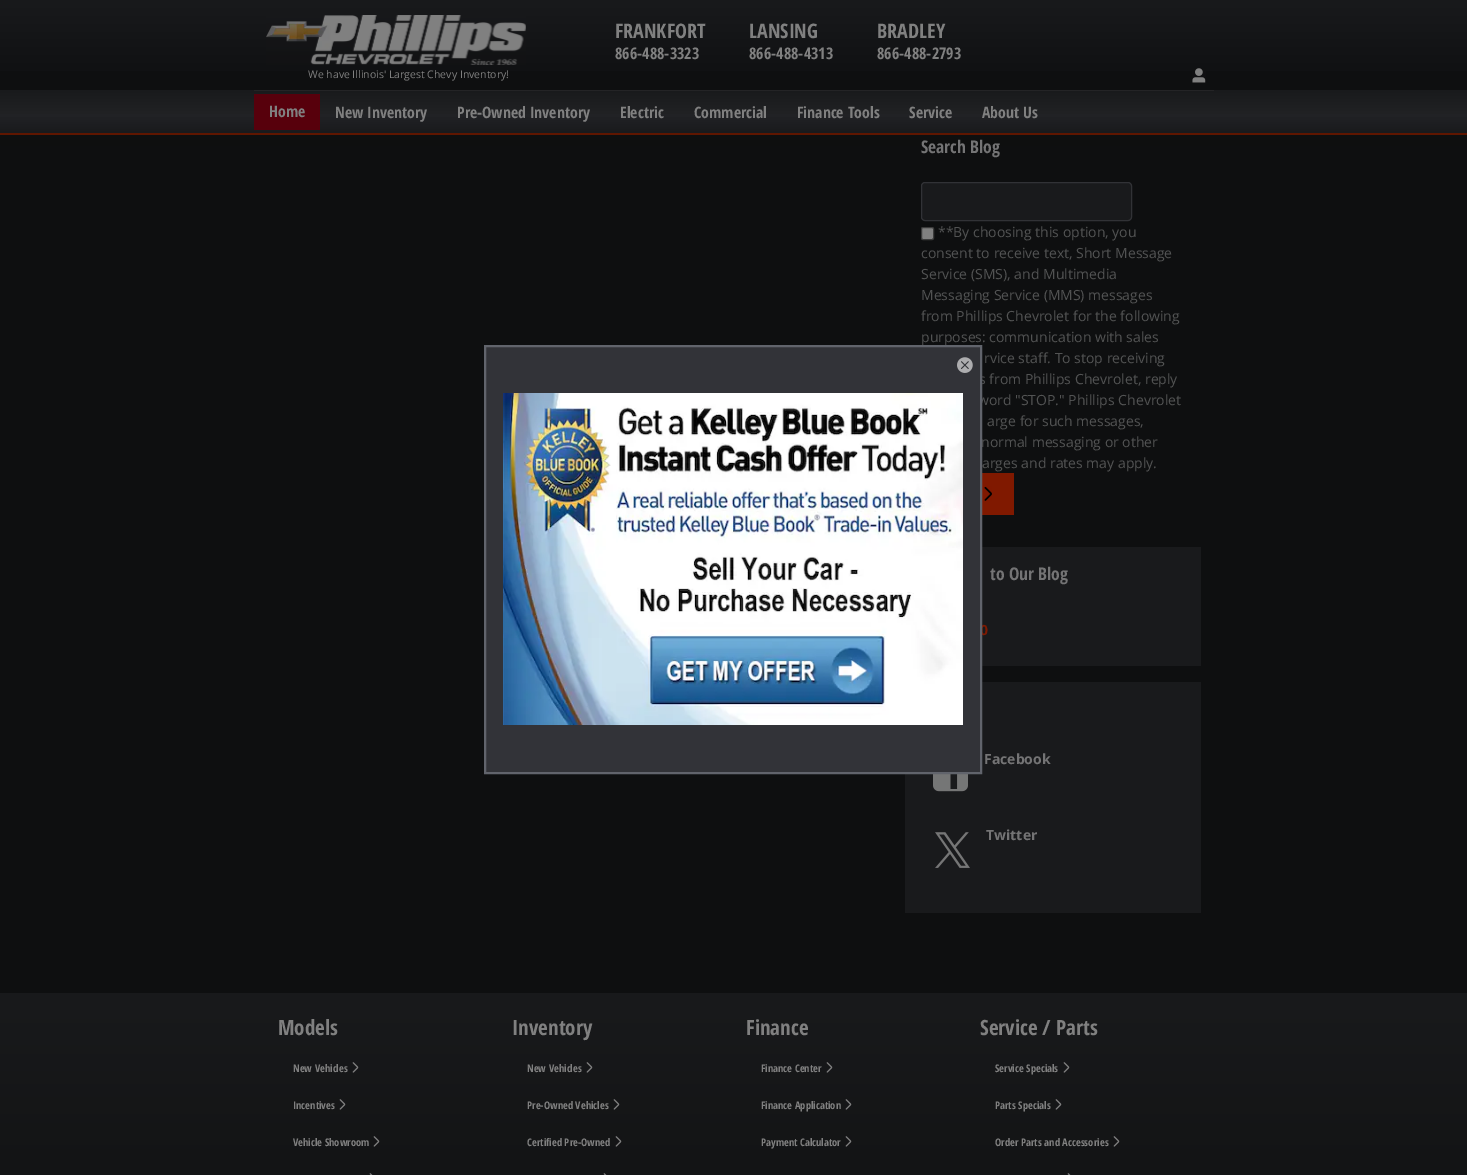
%!PS
<< /PageSize [1467 1175] /PageUsesTransparency true >> setpagedevice
/rgb { 3 { 255 div 3 1 roll } repeat setrgbcolor } def
/font { [ exch dup neg 0 0 3 -1 roll 0 0 ] selectfont } def
/text { moveto show } def
/alpha { dup .setfillconstantalpha .setstrokeconstantalpha } def
/roundrect { 5 dict begin { /r /h /w /y /x } { exch def } forall
  x r add y moveto x w add y 2 copy h add r arct x w add y h add x 1 index r arct
  x y h add x y r arct x y 2 copy exch w add exch r arct closepath end } def
/shadow { 12 dict begin { /a /b /q /h /w /y /x } { exch def } forall gsave /was 0 def
  9 -2 -9 { dup b mul 4 div /e exch def 1 sub .425 mul 2.718 exch exp 1 add a .99 .min exch div /now exch def
    1 1 now sub 1 was sub div sub alpha /was now def
    w h .min e 2 mul add 0 gt { x e sub y e sub w e 2 mul add h e 2 mul add
      q e add b .6 mul add w h .min 2 div e add .min 0 .max roundrect fill } if } for grestore end } def
/picture { 5 dict begin { /h /w /y /x /name } { exch def } forall
  gsave x y translate w h scale
  w h 8 [w 0 0 h 0 0] name (r) file false 3 colorimage grestore end } def
0 .pushpdf14devicefilter
0 1175 translate 1 -1 scale
4 setmiterlimit
14 15 16 rgb
0 0 1467 1175 rectfill
gsave 0 0 moveto 1467 0 rlineto 0 71 rlineto -1467 0 rlineto closepath clip newpath
<< /ShadingType 2 /ColorSpace /DeviceRGB /Coords [734 0 734 90] /Extend [true true] /Function << /FunctionType 2 /Domain [0 1] /C0 [0.098 0.102 0.11] /C1 [0.055 0.059 0.063] /N 1 >> >> shfill grestore
(img_01.rgb) 266 15 260 50 picture
(img_02.rgb) 1192 68 14 15 picture
0 0 0 rgb
0 100 1467 45 0 5 0.15 shadow
gsave 0 90 moveto 1467 0 rlineto 0 43 rlineto -1467 0 rlineto closepath clip newpath
<< /ShadingType 2 /ColorSpace /DeviceRGB /Coords [734 90 734 133] /Extend [true true] /Function << /FunctionType 3 /Domain [0 1] /Functions [<< /FunctionType 2 /Domain [0 1] /C0 [0.098 0.102 0.11] /C1 [0.129 0.133 0.145] /N 1 >> << /FunctionType 2 /Domain [0 1] /C0 [0.129 0.133 0.145] /C1 [0.098 0.102 0.11] /N 1 >>] /Bounds [0.6] /Encode [0 1 0 1] >> >> shfill grestore
95 22 0 rgb
0 133 1467 2 rectfill
36 36 38 rgb
254 90 960 1 rectfill
87 0 12 rgb
254 94 66 36 rectfill
25 26 28 rgb
921.5 182.5 210 38 3.5 roundrect gsave fill grestore
49 50 54 rgb
stroke
128 128 128 rgb
921.5 227.5 12 12 1.5 roundrect gsave fill grestore
59 59 59 rgb
stroke
128 25 0 rgb
982 473 32 42 rectfill
(img_05.rgb) 984 486 8 15 picture
25 26 28 rgb
982 547 219 119 rectfill
905 682 296 231 rectfill
(img_06.rgb) 933 774 35 18 picture
(img_07.rgb) 935 832 35 36 picture
gsave 0 993 moveto 1467 0 rlineto 0 182 rlineto -1467 0 rlineto closepath clip newpath
<< /ShadingType 2 /ColorSpace /DeviceRGB /Coords [734 993 734 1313] /Extend [true true] /Function << /FunctionType 2 /Domain [0 1] /C0 [0.098 0.102 0.11] /C1 [0.055 0.059 0.063] /N 1 >> >> shfill grestore
(img_08.rgb) 352 1062 7 11 picture
(img_09.rgb) 339 1099 7 11 picture
(img_10.rgb) 373 1136 7 11 picture
(img_11.rgb) 369 1173 4 2 picture
(img_08.rgb) 586 1062 7 11 picture
(img_09.rgb) 613 1099 7 11 picture
(img_10.rgb) 615 1136 7 11 picture
(img_11.rgb) 603 1173 4 2 picture
(img_08.rgb) 826 1062 7 11 picture
(img_09.rgb) 845 1099 7 11 picture
(img_10.rgb) 845 1136 7 11 picture
(img_08.rgb) 1063 1062 7 11 picture
(img_09.rgb) 1055 1099 7 11 picture
(img_10.rgb) 1113 1136 7 11 picture
(img_11.rgb) 1067 1173 4 2 picture
/OpenSansCondensed-Bold 20 font
128 128 128 rgb
(FRANKFORT) 615 38 text
/OpenSansCondensed-Bold 16 font
(866-488-3323) 615 59 text
/OpenSansCondensed-Bold 20 font
(LANSING) 749 38 text
/OpenSansCondensed-Bold 16 font
(866-488-4313) 749 59 text
/OpenSansCondensed-Bold 20 font
(BRADLEY) 877 38 text
/OpenSansCondensed-Bold 16 font
(866-488-2793) 877 59 text
/OpenSans-Regular 10.5 font
(We have Illinois' Largest Chevy Inventory!) 308 78 text
/OpenSansCondensed-Bold 15.75 font
(Home) 269 117 text
(New Inventory) 335 118 text
(Pre-Owned Inventory) 457 118 text
(Electric) 620 118 text
(Commercial) 694 118 text
(Finance Tools) 797 118 text
(Service) 909 118 text
(About Us) 982 118 text
/OpenSansCondensed-Bold 17.5 font
116 116 117 rgb
(Search Blog) 921 153 text
/OpenSans-Regular 14 font
82 83 83 rgb
(**By choosing this option, you) 938 237 text
(consent to receive text, Short Message) 921 258 text
(Service \(SMS\), and Multimedia) 921 279 text
(Messaging Service \(MMS\) messages) 921 300 text
(from Phillips Chevrolet for the following) 921 321 text
(purposes: communication with sales) 921 342 text
(rvice staff. To stop receiving) 984 363 text
(s from Phillips Chevrolet, reply) 979 384 text
(word "STOP." Phillips Chevrolet) 978 405 text
(arge for such messages,) 987 426 text
(normal messaging or other) 981 447 text
(arges and rates may apply.) 982 468 text
/OpenSansCondensed-Bold 17.5 font
116 116 117 rgb
(to Our Blog) 990 580 text
/OpenSans-Bold 14 font
128 25 0 rgb
(0) 980 635 text
50 51 56 rgb
485 346 moveto 496 0 rlineto 0 427 rlineto -496 0 rlineto closepath gsave fill grestore
97 100 108 rgb
2 setlinewidth
stroke
(img_04.rgb) 503 393 460 332 picture
(img_03.rgb) 957 357 16 16 picture
116 116 117 rgb
(Facebook) 984 764 text
(Twitter) 986 840 text
/OpenSansCondensed-Bold 21 font
128 128 128 rgb
(Models) 278 1035 text
/OpenSansCondensed-Bold 10.5 font
(New Vehicles) 293 1072 text
(Incentives) 293 1109 text
(Vehicle Showroom) 293 1146 text
/OpenSansCondensed-Bold 21 font
(Inventory) 512 1035 text
/OpenSansCondensed-Bold 10.5 font
(New Vehicles) 527 1072 text
(Pre-Owned Vehicles) 527 1109 text
(Certified Pre-Owned) 527 1146 text
/OpenSansCondensed-Bold 21 font
(Finance) 746 1035 text
/OpenSansCondensed-Bold 10.5 font
(Finance Center) 761 1072 text
(Finance Application) 761 1109 text
(Payment Calculator) 761 1146 text
/OpenSansCondensed-Bold 21 font
(Service / Parts) 980 1035 text
/OpenSansCondensed-Bold 10.5 font
(Service Specials) 995 1072 text
(Parts Specials) 995 1109 text
(Order Parts and Accessories) 995 1146 text
.poppdf14devicefilter showpage
